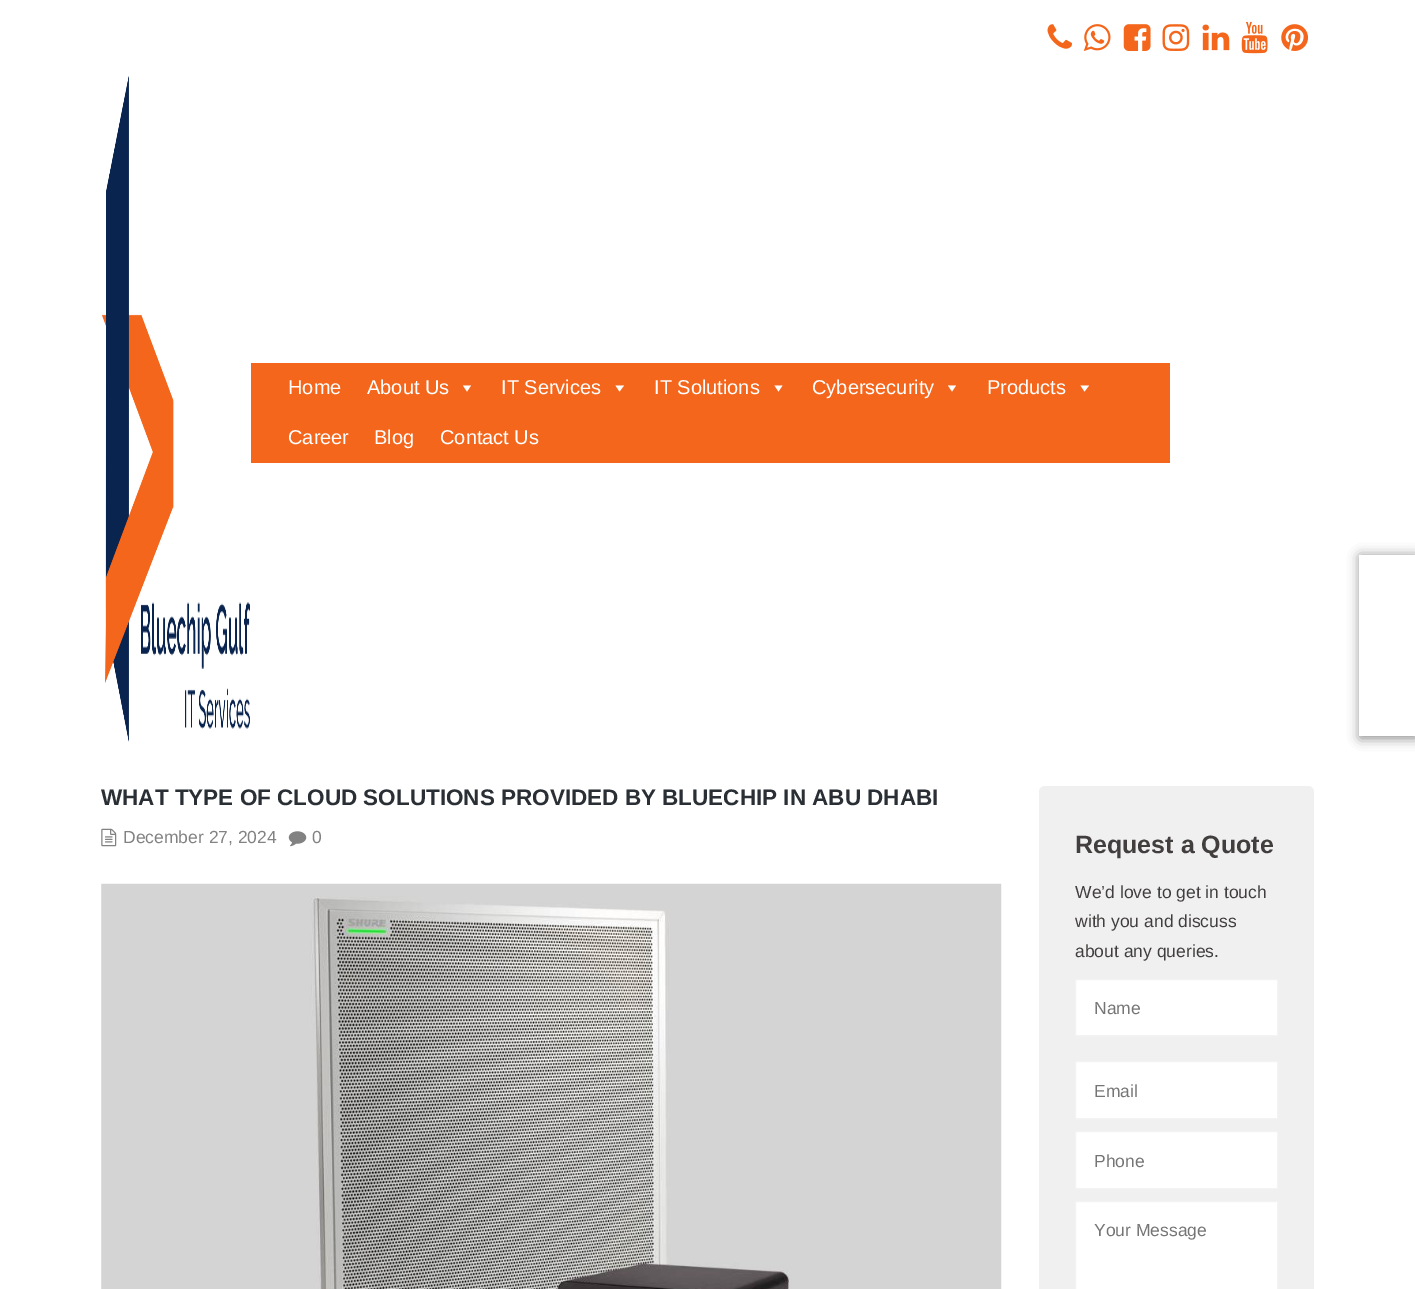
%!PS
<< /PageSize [1415 1289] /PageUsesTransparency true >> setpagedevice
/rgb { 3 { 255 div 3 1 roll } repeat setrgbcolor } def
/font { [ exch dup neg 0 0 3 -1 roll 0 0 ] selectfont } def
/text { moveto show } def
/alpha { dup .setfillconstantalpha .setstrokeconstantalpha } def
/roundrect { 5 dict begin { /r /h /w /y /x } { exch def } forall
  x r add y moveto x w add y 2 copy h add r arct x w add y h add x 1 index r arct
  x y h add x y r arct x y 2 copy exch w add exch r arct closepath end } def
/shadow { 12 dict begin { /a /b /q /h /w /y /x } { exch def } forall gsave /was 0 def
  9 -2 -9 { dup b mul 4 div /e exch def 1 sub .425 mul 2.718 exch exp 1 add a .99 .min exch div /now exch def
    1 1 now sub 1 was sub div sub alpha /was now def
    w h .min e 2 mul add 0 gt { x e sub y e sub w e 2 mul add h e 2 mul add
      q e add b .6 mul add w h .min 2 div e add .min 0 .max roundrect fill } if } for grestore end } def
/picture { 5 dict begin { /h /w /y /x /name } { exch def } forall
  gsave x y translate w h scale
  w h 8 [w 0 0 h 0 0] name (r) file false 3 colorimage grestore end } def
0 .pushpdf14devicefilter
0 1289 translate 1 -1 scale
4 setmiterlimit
255 255 255 rgb
0 0 1415 1289 rectfill
(img_01.rgb) 1047 24 25 25 picture
(img_02.rgb) 1083 24 28 27 picture
(img_03.rgb) 1123 24 28 27 picture
(img_04.rgb) 1162 24 28 27 picture
(img_05.rgb) 1202 24 28 27 picture
(img_06.rgb) 1241 21 27 33 picture
(img_07.rgb) 1281 24 27 27 picture
(img_08.rgb) 102 76 148 666 picture
243 102 27 rgb
251 363 919 100 rectfill
255 255 255 rgb
471 385.5 moveto -4 6 rlineto -4 -6 rlineto closepath fill
624 385.5 moveto -4.5 6 rlineto -4 -6 rlineto closepath fill
782.5 385.5 moveto -4 6 rlineto -4 -6 rlineto closepath fill
956 385.5 moveto -4 6 rlineto -4 -6 rlineto closepath fill
1089 385.5 moveto -4.5 6 rlineto -4 -6 rlineto closepath fill
128 128 128 rgb
1360 556 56 182 0 6 1 shadow
255 255 255 rgb
1359 555 56 181 rectfill
(img_09.rgb) 101 828 16 19 picture
(img_10.rgb) 288 831 19 16 picture
(img_11.rgb) 101 883 901 406 picture
240 240 240 rgb
1039 786 275 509 6 roundrect fill
255 255 255 rgb
1075.5 979.5 moveto 202 0 rlineto 0 56 rlineto -202 0 rlineto closepath gsave fill grestore
243 243 243 rgb
stroke
255 255 255 rgb
1075.5 1061.5 moveto 202 0 rlineto 0 57 rlineto -202 0 rlineto closepath gsave fill grestore
243 243 243 rgb
stroke
255 255 255 rgb
1075.5 1131.5 moveto 202 0 rlineto 0 57 rlineto -202 0 rlineto closepath gsave fill grestore
243 243 243 rgb
stroke
255 255 255 rgb
1075.5 1201.5 moveto 202 0 rlineto 0 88 rlineto -202 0 rlineto closepath gsave fill grestore
243 243 243 rgb
stroke
/LiberationSans-Regular 20 font
255 255 255 rgb
(Home) 288 394 text
(About Us) 367 394 text
(IT Services) 501 394 text
(IT Solutions) 654 394 text
(Cybersecurity) 812 394 text
(Products) 987 394 text
(Career) 288 444 text
(Blog) 374 444 text
(Contact Us) 440 444 text
/LiberationSans-Bold 22.5 font
42 47 53 rgb
(WHAT TYPE OF CLOUD SOLUTIONS PROVIDED BY BLUECHIP IN ABU DHABI) 101 805 text
/LiberationSans-Regular 17.5 font
130 130 130 rgb
(December 27, 2024) 123 843 text
(0) 312 843 text
/LiberationSans-Bold 25 font
66 62 62 rgb
(Request a Quote) 1075 853 text
/LiberationSans-Regular 17.5 font
(We’d love to get in touch) 1075 898 text
(with you and discuss) 1075 927 text
(about any queries.) 1075 957 text
117 117 117 rgb
(Name) 1094 1014 text
(Email) 1094 1097 text
(Phone) 1094 1167 text
(Your Message) 1094 1236 text
.poppdf14devicefilter showpage
